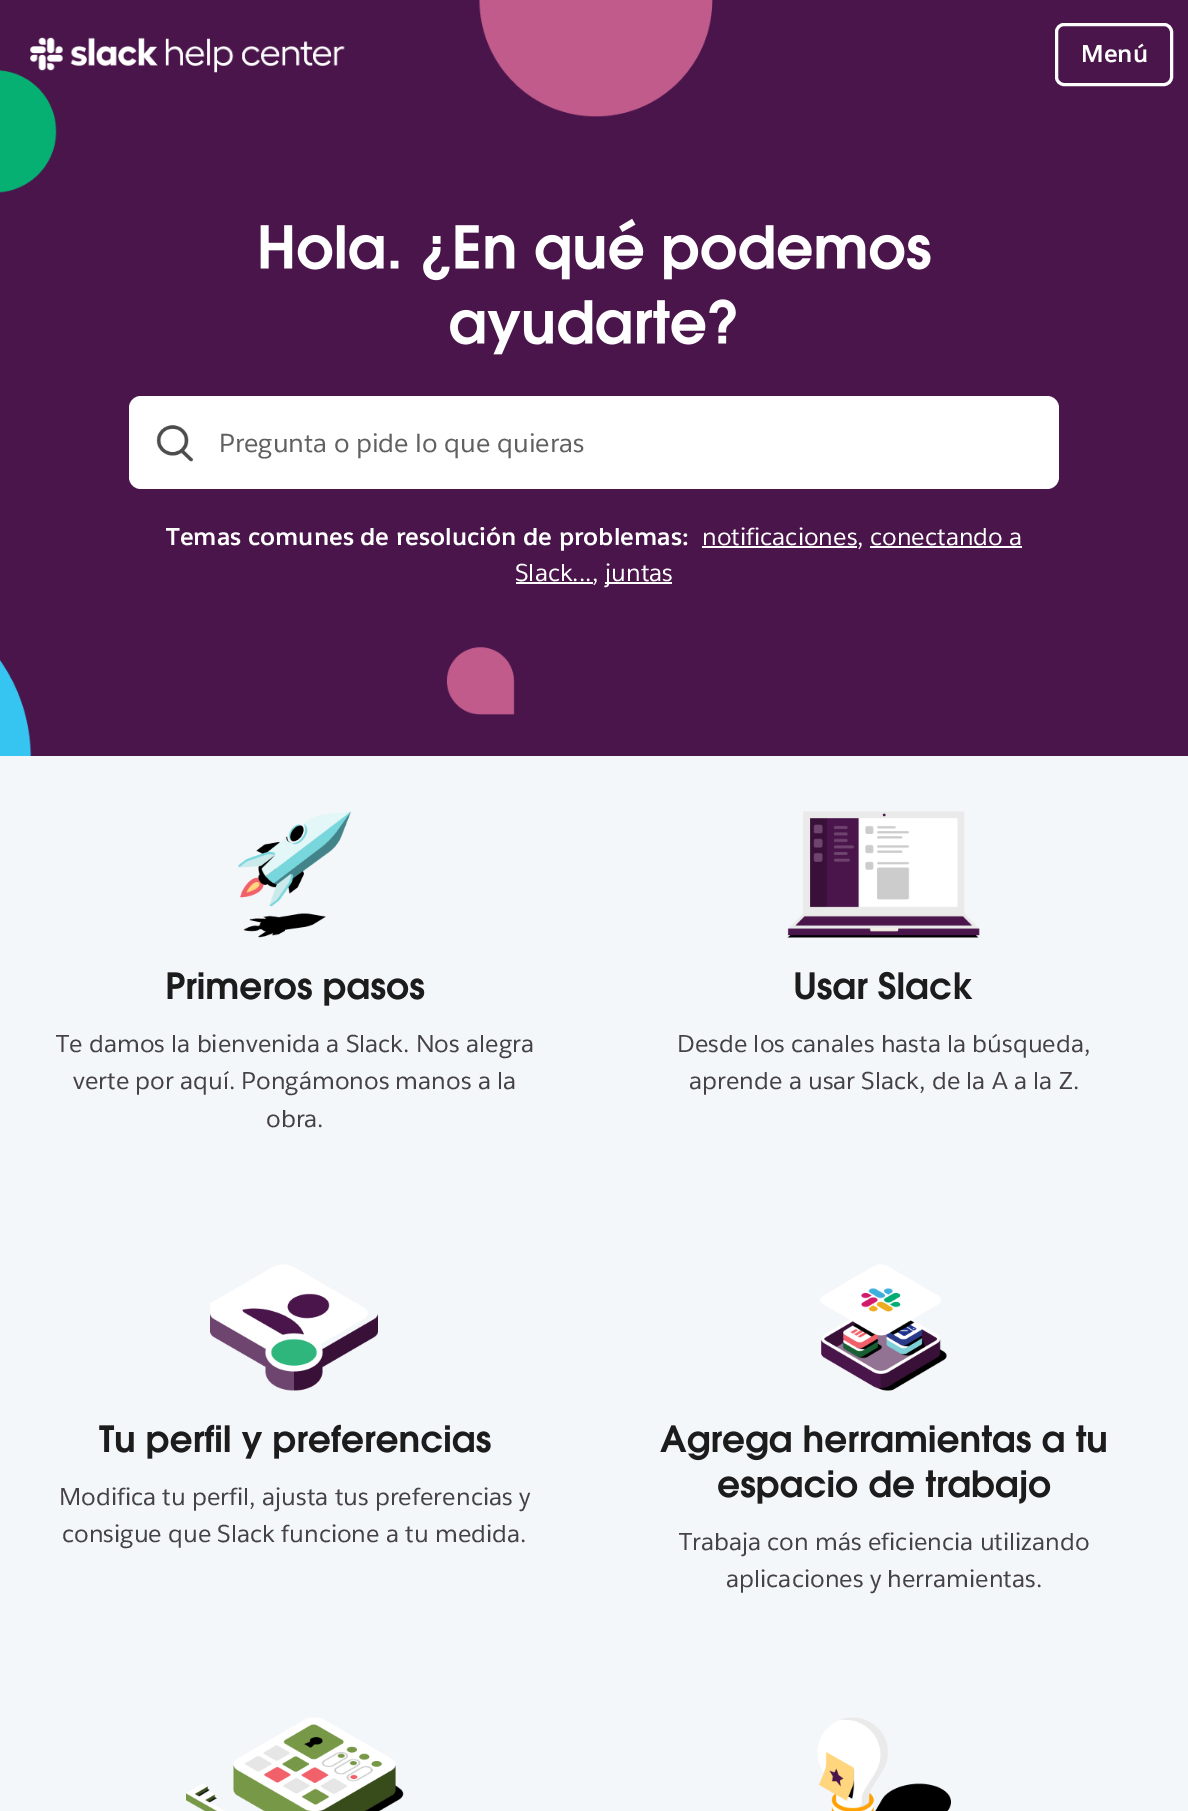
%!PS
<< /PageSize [1188 1811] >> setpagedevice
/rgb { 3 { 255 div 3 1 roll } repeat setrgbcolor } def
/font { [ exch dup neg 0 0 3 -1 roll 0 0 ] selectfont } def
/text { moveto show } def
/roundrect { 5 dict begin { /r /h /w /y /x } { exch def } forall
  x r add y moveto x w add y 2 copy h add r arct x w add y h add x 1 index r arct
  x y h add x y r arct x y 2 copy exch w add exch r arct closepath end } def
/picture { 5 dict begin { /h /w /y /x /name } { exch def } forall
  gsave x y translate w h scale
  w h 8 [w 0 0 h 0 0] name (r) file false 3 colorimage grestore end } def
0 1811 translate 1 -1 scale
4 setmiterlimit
255 255 255 rgb
0 0 1188 1811 rectfill
(img_02.rgb) 0 0 1188 756 picture
(img_01.rgb) 30 37 315 36 picture
3 setlinewidth
1056.5 24.5 115 60 7.5 roundrect stroke
(img_03.rgb) 260 218 671 63 picture
(img_04.rgb) 450 299 286 56 picture
129 396 930 93 12 roundrect fill
(img_05.rgb) 156 425 38 37 picture
702 546 155 2 rectfill
870 546 152 2 rectfill
516 582 77 2 rectfill
605 582 67 2 rectfill
244 247 250 rgb
0 756 1188 1055 rectfill
(img_06.rgb) 238 811 113 127 picture
(img_07.rgb) 167 972 258 34 picture
(img_08.rgb) 787 811 193 127 picture
(img_09.rgb) 795 971 178 29 picture
(img_10.rgb) 210 1264 168 127 picture
(img_11.rgb) 99 1424 392 35 picture
(img_12.rgb) 820 1264 127 127 picture
(img_13.rgb) 660 1425 446 36 picture
(img_14.rgb) 718 1470 333 34 picture
(img_15.rgb) 186 1717 218 94 picture
(img_16.rgb) 817 1717 134 94 picture
/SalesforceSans-Bold 24 font
255 255 255 rgb
(Menú) 1081 62 text
/SalesforceSans-Regular 25.6 font
97 96 97 rgb
(Pregunta o pide lo que quieras) 219 452 text
/SalesforceSans-Bold 24 font
255 255 255 rgb
(Temas comunes de resolución de problemas:) 166 545 text
/SalesforceSans-Regular 24 font
(notificaciones, conectando a) 702 545 text
(Slack...,) 515 581 text
(juntas) 605 581 text
69 66 69 rgb
(Te damos la bienvenida a Slack. Nos alegra) 56 1052 text
(verte por aquí. Pongámonos manos a la) 73 1089 text
(obra.) 266 1127 text
(Desde los canales hasta la búsqueda,) 677 1052 text
(aprende a usar Slack, de la A a la Z.) 689 1089 text
(Modifica tu perfil, ajusta tus preferencias y) 59 1505 text
(consigue que Slack funcione a tu medida.) 62 1542 text
(Trabaja con más eficiencia utilizando) 679 1550 text
(aplicaciones y herramientas.) 726 1587 text
showpage
